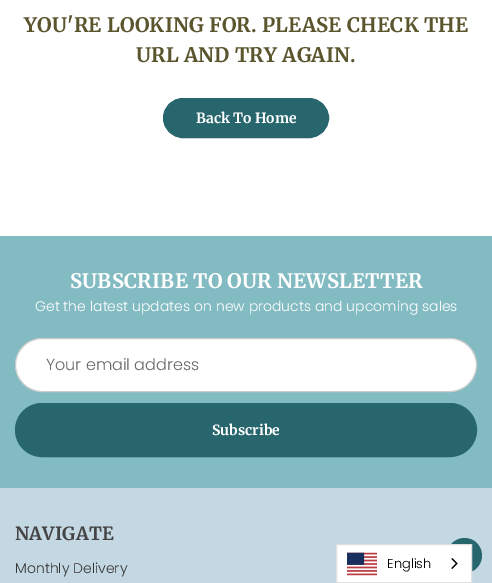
%!PS
<< /PageSize [492 583] >> setpagedevice
/rgb { 3 { 255 div 3 1 roll } repeat setrgbcolor } def
/font { [ exch dup neg 0 0 3 -1 roll 0 0 ] selectfont } def
/text { moveto show } def
/circle { newpath 0 360 arc closepath } def
/roundrect { 5 dict begin { /r /h /w /y /x } { exch def } forall
  x r add y moveto x w add y 2 copy h add r arct x w add y h add x 1 index r arct
  x y h add x y r arct x y 2 copy exch w add exch r arct closepath end } def
/picture { 5 dict begin { /h /w /y /x /name } { exch def } forall
  gsave x y translate w h scale
  w h 8 [w 0 0 h 0 0] name (r) file false 3 colorimage grestore end } def
0 583 translate 1 -1 scale
4 setmiterlimit
255 255 255 rgb
0 0 492 583 rectfill
40 102 110 rgb
163.5 98.5 165 39 19.5 roundrect gsave fill grestore
stroke
131 187 194 rgb
0 236 492 252 rectfill
255 255 255 rgb
15.5 338.5 461 53 26.5 roundrect gsave fill grestore
204 204 204 rgb
stroke
40 102 110 rgb
15.5 403.5 461 53 26.5 roundrect gsave fill grestore
stroke
196 216 228 rgb
0 488 492 95 rectfill
40 102 110 rgb
464.5 555.5 17.5 circle fill
255 255 255 rgb
336.5 544.5 moveto 135 0 rlineto 0 38 rlineto -135 0 rlineto closepath gsave fill grestore
224 224 224 rgb
stroke
(img_01.rgb) 347 552 30 24 picture
(img_02.rgb) 451 558 7 11 picture
/Merriweather-Light 20 font
91 85 46 rgb
24 32 moveto 0.25 0 (YOU'RE LOOKING FOR. PLEASE CHECK THE) ashow
136 62 moveto 0.25 0 (URL AND TRY AGAIN.) ashow
/Merriweather-Light 14 font
255 255 255 rgb
(Back To Home) 196 123 text
/Merriweather-Light 20 font
70 288 moveto 0.25 0 (SUBSCRIBE TO OUR NEWSLETTER) ashow
/Poppins-Light 14 font
(Get the latest updates on new products and upcoming sales) 35 311 text
/Poppins-Light 16 font
102 102 102 rgb
(Your email address) 46 370 text
/Merriweather-Light 14 font
255 255 255 rgb
(Subscribe) 212 435 text
/Merriweather-Light 18 font
68 68 68 rgb
15 540 moveto 0.25 0 (NAVIGATE) ashow
/Poppins-Light 14 font
51 51 51 rgb
(Monthly Delivery) 15 573 text
/Poppins-Light 13 font
0 0 0 rgb
(English) 387 568 text
showpage
